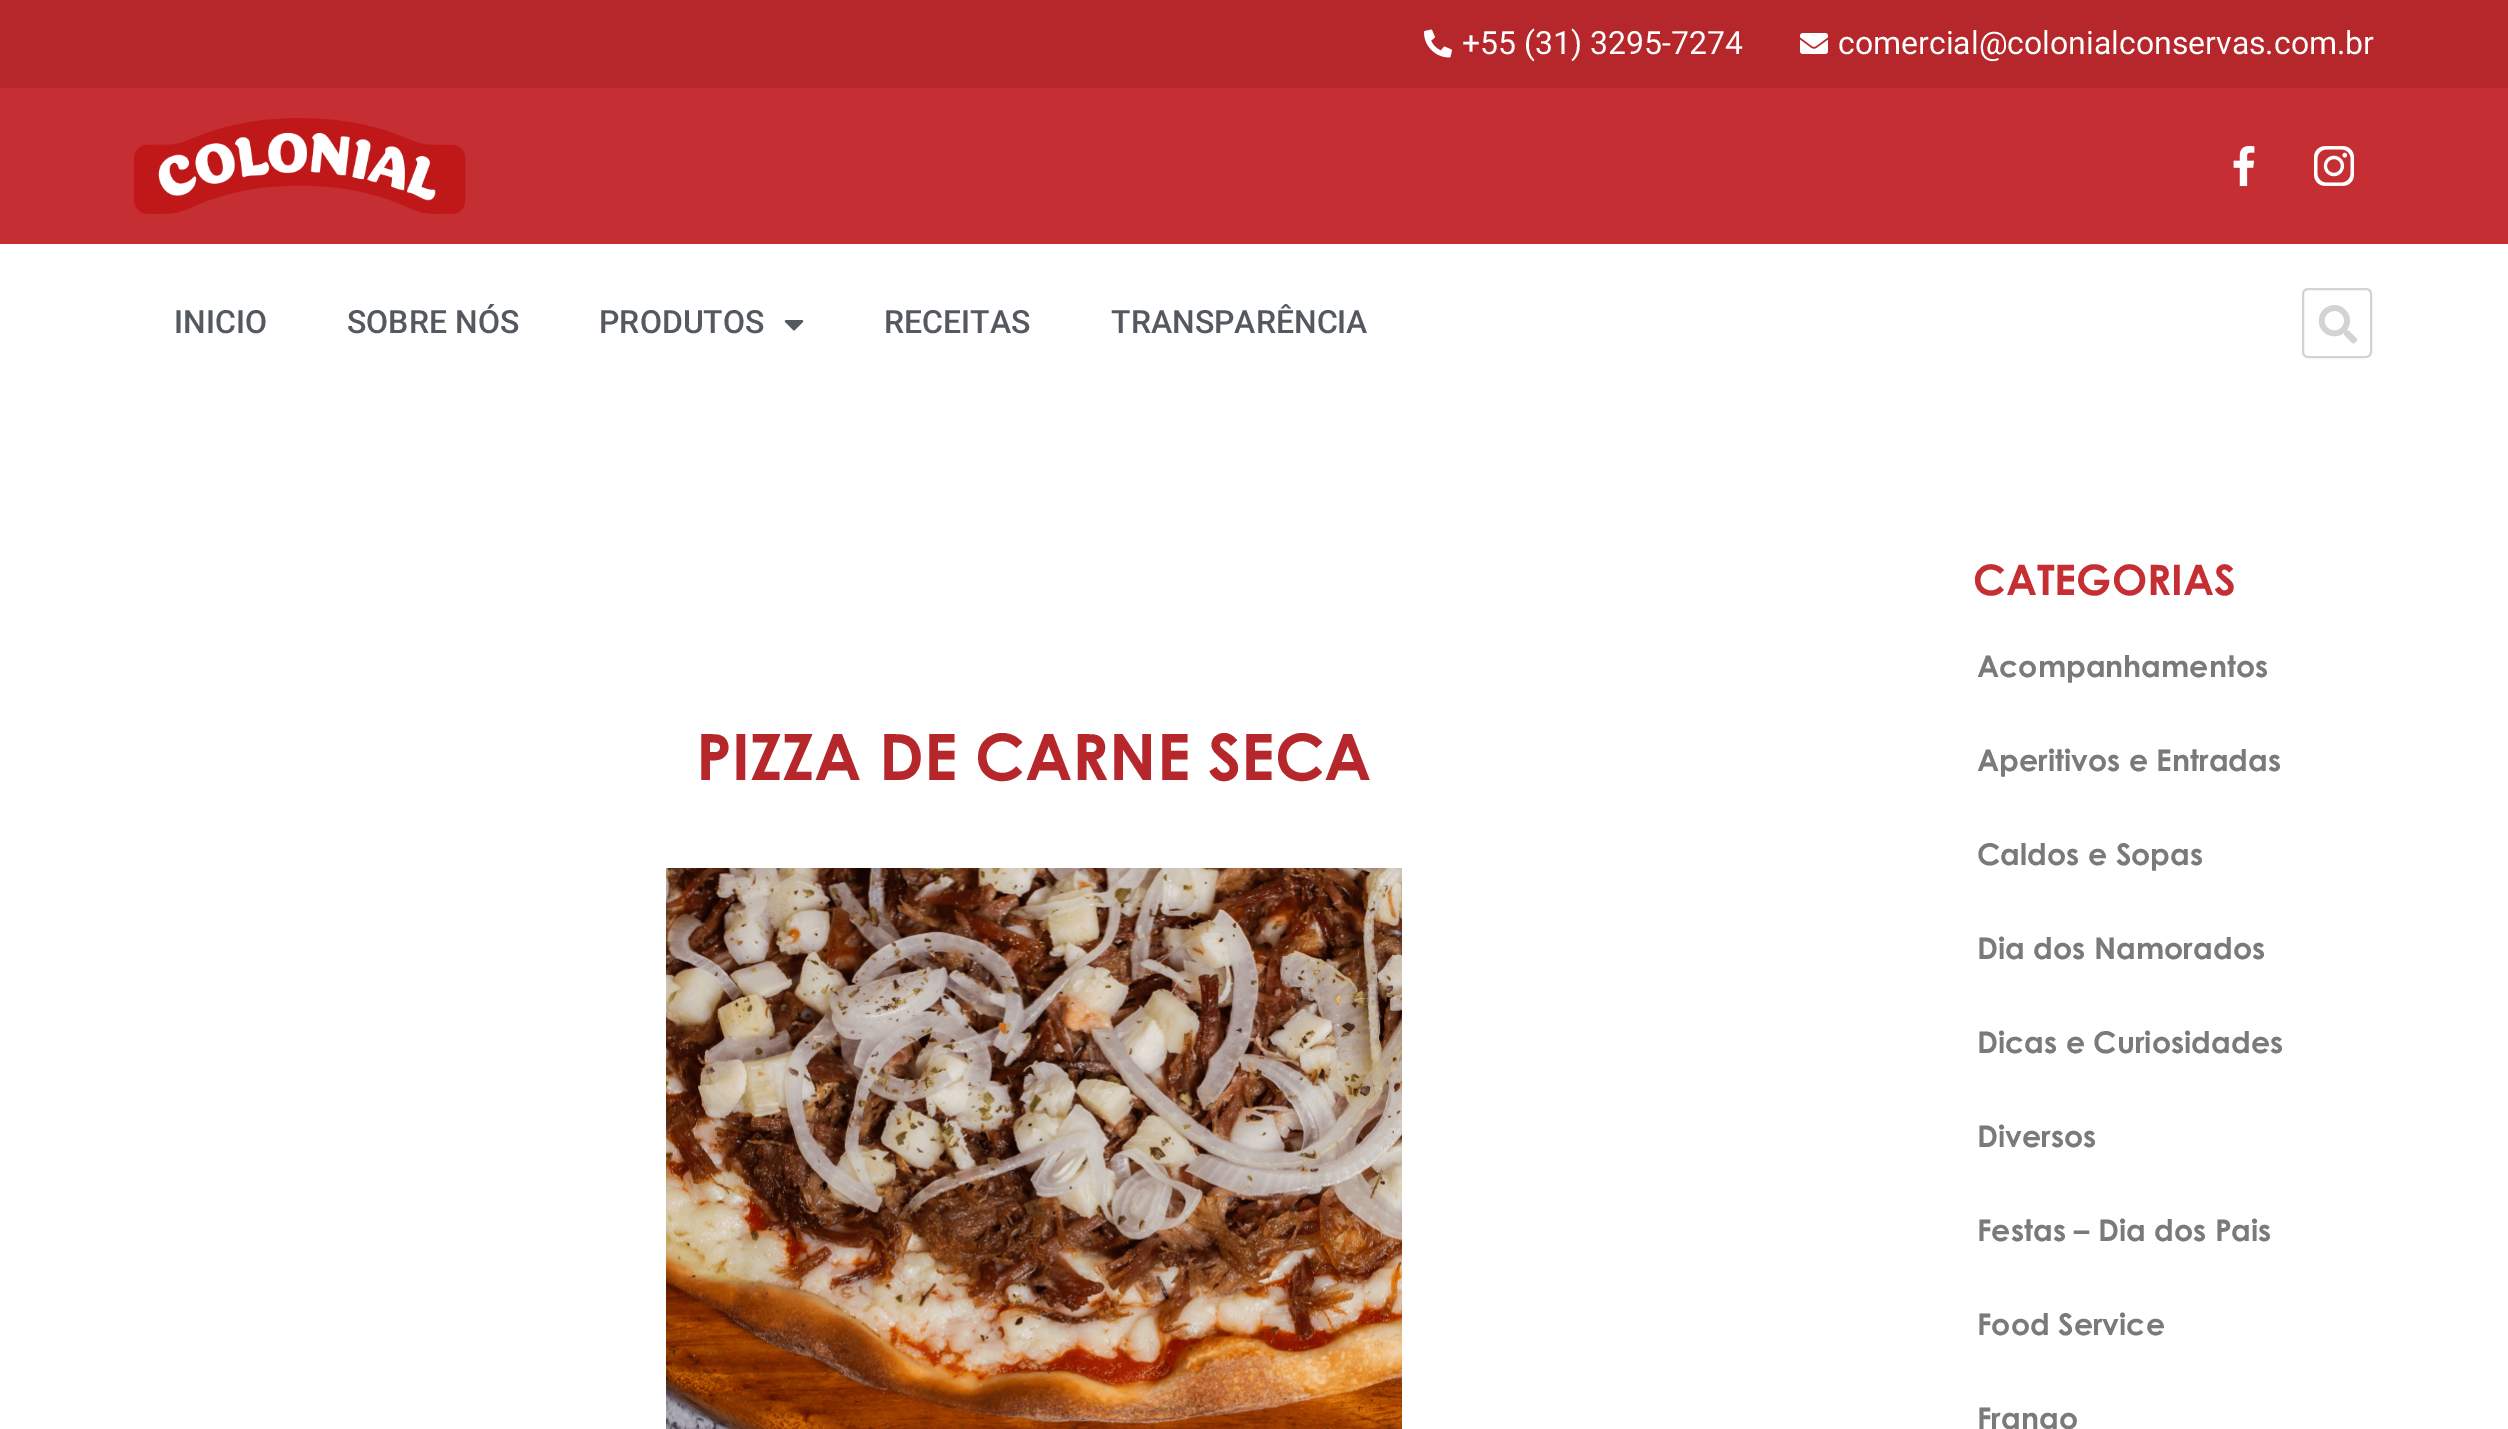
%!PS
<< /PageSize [2508 1429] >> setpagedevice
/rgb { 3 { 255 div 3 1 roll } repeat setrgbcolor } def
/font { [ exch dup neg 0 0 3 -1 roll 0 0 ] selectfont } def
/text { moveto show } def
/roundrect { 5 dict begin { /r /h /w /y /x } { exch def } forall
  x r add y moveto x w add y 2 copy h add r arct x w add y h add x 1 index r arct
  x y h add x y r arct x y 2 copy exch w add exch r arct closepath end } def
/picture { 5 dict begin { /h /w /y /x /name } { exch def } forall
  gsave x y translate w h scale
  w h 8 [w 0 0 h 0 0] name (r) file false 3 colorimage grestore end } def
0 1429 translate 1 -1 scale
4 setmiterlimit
255 255 255 rgb
0 0 2508 1429 rectfill
182 39 43 rgb
0 0 2508 88 rectfill
(img_01.rgb) 1424 29 28 29 picture
(img_02.rgb) 1800 33 28 21 picture
197 47 51 rgb
0 88 2508 156 rectfill
(img_03.rgb) 134 118 332 96 picture
(img_04.rgb) 2233 146 22 40 picture
(img_05.rgb) 2314 146 40 40 picture
(img_06.rgb) 784 320 20 11 picture
211 211 211 rgb
2 setlinewidth
2303 289 68 68 5 roundrect stroke
(img_07.rgb) 2318 305 40 39 picture
(img_08.rgb) 666 868 736 561 picture
/Roboto-Regular 32 font
255 255 255 rgb
(+55 \(31\) 3295-7274) 1462 54 text
(comercial@colonialconservas.com.br) 1838 54 text
/Roboto-Medium 32 font
84 89 95 rgb
(INICIO) 174 333 text
(SOBRE NÓS) 347 333 text
(PRODUTOS) 599 333 text
(RECEITAS) 884 333 text
(TRANSPARÊNCIA) 1111 333 text
/CenturyGothic-Bold 64 font
182 39 43 rgb
(PIZZA DE CARNE SECA) 696 780 text
/CenturyGothic-Bold 42 font
197 47 51 rgb
(CATEGORIAS) 1973 595 text
/CenturyGothic-Bold 30 font
122 122 122 rgb
(Acompanhamentos) 1977 677 text
(Aperitivos e Entradas) 1977 771 text
(Caldos e Sopas) 1977 865 text
(Dia dos Namorados) 1977 959 text
(Dicas e Curiosidades) 1977 1053 text
(Diversos) 1977 1147 text
(Festas – Dia dos Pais) 1977 1241 text
(Food Service) 1977 1335 text
(Frango) 1977 1429 text
showpage
